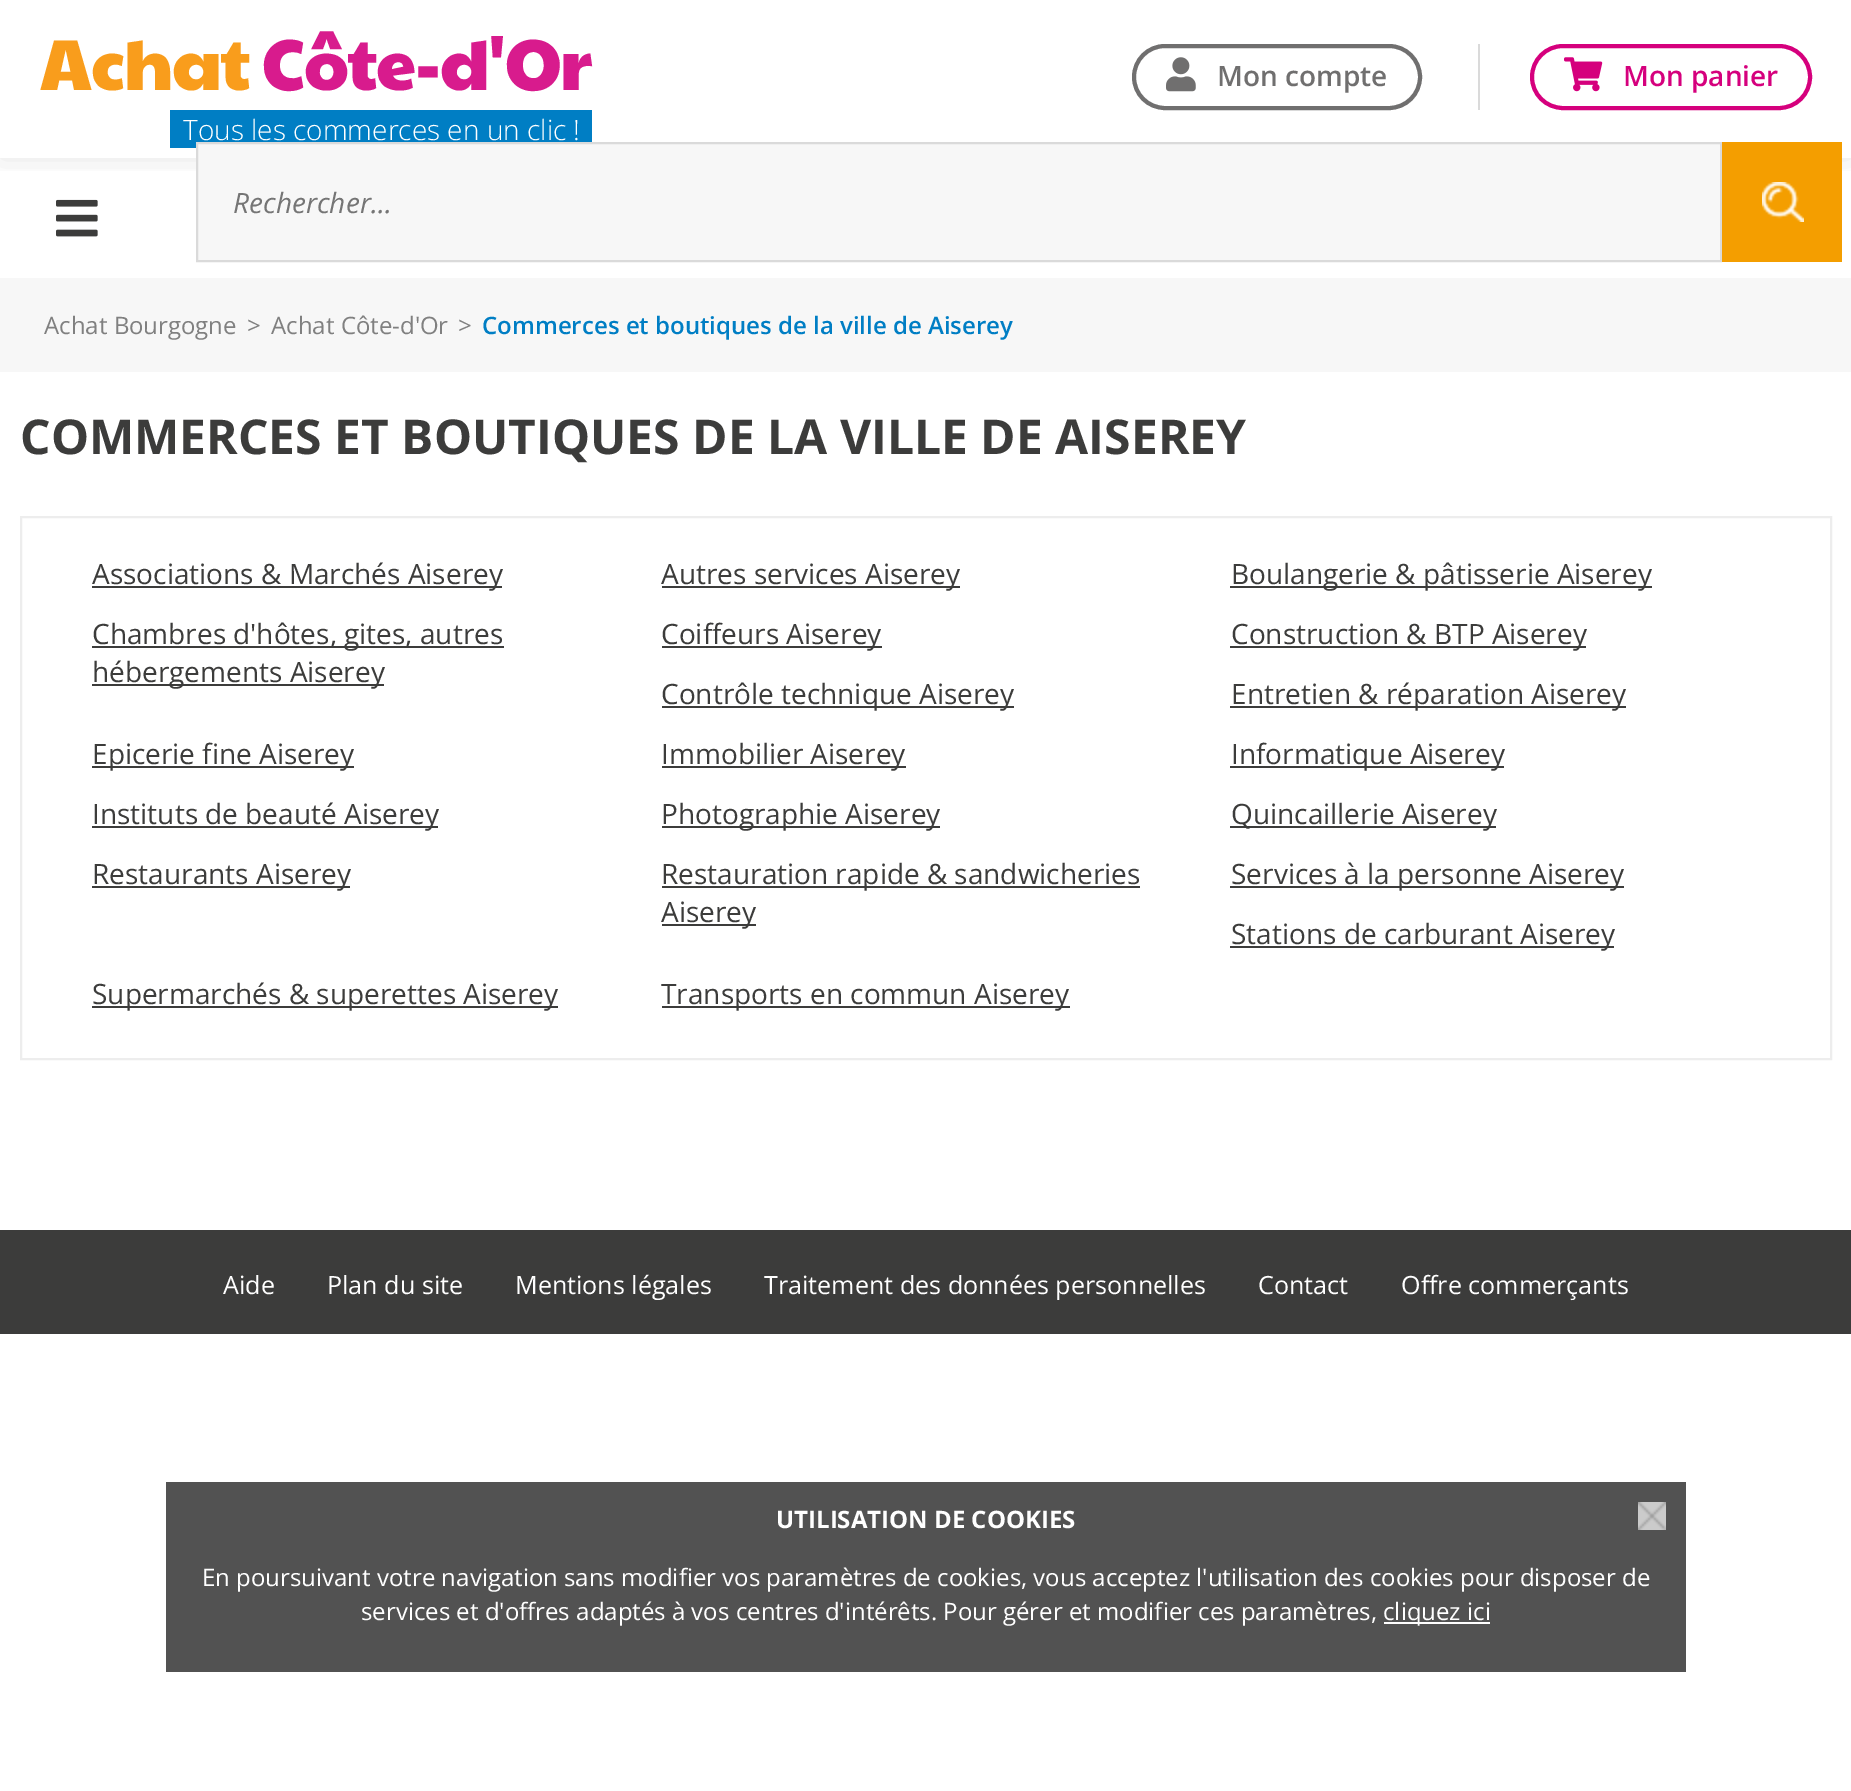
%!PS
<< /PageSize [1851 1791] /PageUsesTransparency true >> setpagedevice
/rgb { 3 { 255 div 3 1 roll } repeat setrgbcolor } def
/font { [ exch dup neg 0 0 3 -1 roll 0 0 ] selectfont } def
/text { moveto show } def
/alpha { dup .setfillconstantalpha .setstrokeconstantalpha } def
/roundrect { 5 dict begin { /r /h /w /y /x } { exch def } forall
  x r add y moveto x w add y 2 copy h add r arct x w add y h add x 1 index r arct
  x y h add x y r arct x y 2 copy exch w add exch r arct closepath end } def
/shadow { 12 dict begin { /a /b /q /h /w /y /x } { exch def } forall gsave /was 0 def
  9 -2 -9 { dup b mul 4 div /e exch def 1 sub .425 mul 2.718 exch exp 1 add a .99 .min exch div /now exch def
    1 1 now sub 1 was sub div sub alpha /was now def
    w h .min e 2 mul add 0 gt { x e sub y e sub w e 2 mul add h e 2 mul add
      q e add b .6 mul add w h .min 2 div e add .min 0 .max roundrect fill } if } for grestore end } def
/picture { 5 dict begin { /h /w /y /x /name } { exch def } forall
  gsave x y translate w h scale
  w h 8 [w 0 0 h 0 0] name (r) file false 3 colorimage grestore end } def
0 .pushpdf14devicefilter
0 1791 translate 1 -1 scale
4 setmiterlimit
255 255 255 rgb
0 0 1851 1791 rectfill
(img_04.rgb) 56 199 42 38 picture
gsave
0 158 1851 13 rectclip
0 0 0 rgb
0 0 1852 158 0 15 0.1 shadow
grestore
0 126 196 rgb
170 110 422 38 rectfill
112 111 111 rgb
4 setlinewidth
1134 46 286 62 31 roundrect stroke
(img_01.rgb) 1166 57 30 35 picture
218 218 218 rgb
1478 44 2 66 rectfill
213 0 125 rgb
1532 46 278 62 31 roundrect stroke
(img_02.rgb) 1564 57 39 35 picture
247 247 247 rgb
197 143 moveto 1524 0 rlineto 0 118 rlineto -1524 0 rlineto closepath gsave fill grestore
218 218 218 rgb
2 setlinewidth
stroke
244 158 0 rgb
1722 142 120 120 rectfill
(img_03.rgb) 1762 182 42 40 picture
247 247 247 rgb
0 278 1851 94 rectfill
237 237 237 rgb
21 517 1810 542 rectstroke
60 60 59 rgb
92 586 410 2 rectfill
662 586 298 2 rectfill
1230 586 422 2 rectfill
92 646 412 2 rectfill
92 684 292 2 rectfill
662 646 220 2 rectfill
1230 646 356 2 rectfill
662 706 352 2 rectfill
1230 706 396 2 rectfill
92 766 262 2 rectfill
662 766 244 2 rectfill
1230 766 274 2 rectfill
92 826 346 2 rectfill
662 826 278 2 rectfill
1230 826 266 2 rectfill
92 886 258 2 rectfill
662 886 478 2 rectfill
662 924 94 2 rectfill
1230 886 394 2 rectfill
1230 946 384 2 rectfill
92 1006 466 2 rectfill
662 1006 408 2 rectfill
0 1230 1851 104 rectfill
82 82 82 rgb
166 1482 1520 190 rectfill
(img_05.rgb) 1638 1502 28 28 picture
255 255 255 rgb
1384 1622 106 2 rectfill
/PaytoneOne-Regular 72 font
249 157 28 rgb
40 90 moveto -1 0 (Achat) ashow
216 27 141 rgb
262 90 moveto -1 0 (Côte-d'Or) ashow
/OpenSans-Light 28 font
255 255 255 rgb
(Tous les commerces en un clic !) 183 140 text
/OpenSans-SemiBold 28 font
112 111 111 rgb
(Mon compte) 1217 86 text
213 0 125 rgb
(Mon panier) 1623 86 text
/OpenSans-Italic 28 font
117 117 117 rgb
(Rechercher...) 233 213 text
/OpenSans-Regular 24 font
128 128 128 rgb
(Achat Bourgogne) 44 334 text
(>) 247 334 text
(Achat Côte-d'Or) 271 334 text
(>) 458 334 text
/OpenSans-SemiBold 24 font
0 126 196 rgb
(Commerces et boutiques de la ville de Aiserey) 482 334 text
/OpenSans-Bold 48 font
60 60 59 rgb
(COMMERCES ET BOUTIQUES DE LA VILLE DE AISEREY) 20 454 text
/OpenSans-Regular 28 font
(Associations & Marchés Aiserey) 92 584 text
(Autres services Aiserey) 661 584 text
(Boulangerie & pâtisserie Aiserey) 1231 584 text
(Chambres d'hôtes, gites, autres) 92 644 text
(hébergements Aiserey) 92 682 text
(Coiffeurs Aiserey) 661 644 text
(Construction & BTP Aiserey) 1231 644 text
(Contrôle technique Aiserey) 661 704 text
(Entretien & réparation Aiserey) 1231 704 text
(Epicerie fine Aiserey) 92 764 text
(Immobilier Aiserey) 661 764 text
(Informatique Aiserey) 1231 764 text
(Instituts de beauté Aiserey) 92 824 text
(Photographie Aiserey) 661 824 text
(Quincaillerie Aiserey) 1231 824 text
(Restaurants Aiserey) 92 884 text
(Restauration rapide & sandwicheries) 661 884 text
(Aiserey) 661 922 text
(Services à la personne Aiserey) 1231 884 text
(Stations de carburant Aiserey) 1231 944 text
(Supermarchés & superettes Aiserey) 92 1004 text
(Transports en commun Aiserey) 661 1004 text
/OpenSans-Regular 25.1 font
255 255 255 rgb
(Aide) 223 1294 text
(Plan du site) 327 1294 text
(Mentions légales) 515 1294 text
(Traitement des données personnelles) 764 1294 text
(Contact) 1258 1294 text
(Offre commerçants) 1401 1294 text
/OpenSans-Bold 24 font
(UTILISATION DE COOKIES) 776 1528 text
/OpenSans-Regular 24 font
(En poursuivant votre navigation sans modifier vos paramètres de cookies, vous acceptez l'utilisation des cookies pour disposer de) 202 1586 text
(services et d'offres adaptés à vos centres d'intérêts. Pour gérer et modifier ces paramètres,) 361 1620 text
(cliquez ici) 1383 1620 text
.poppdf14devicefilter showpage
